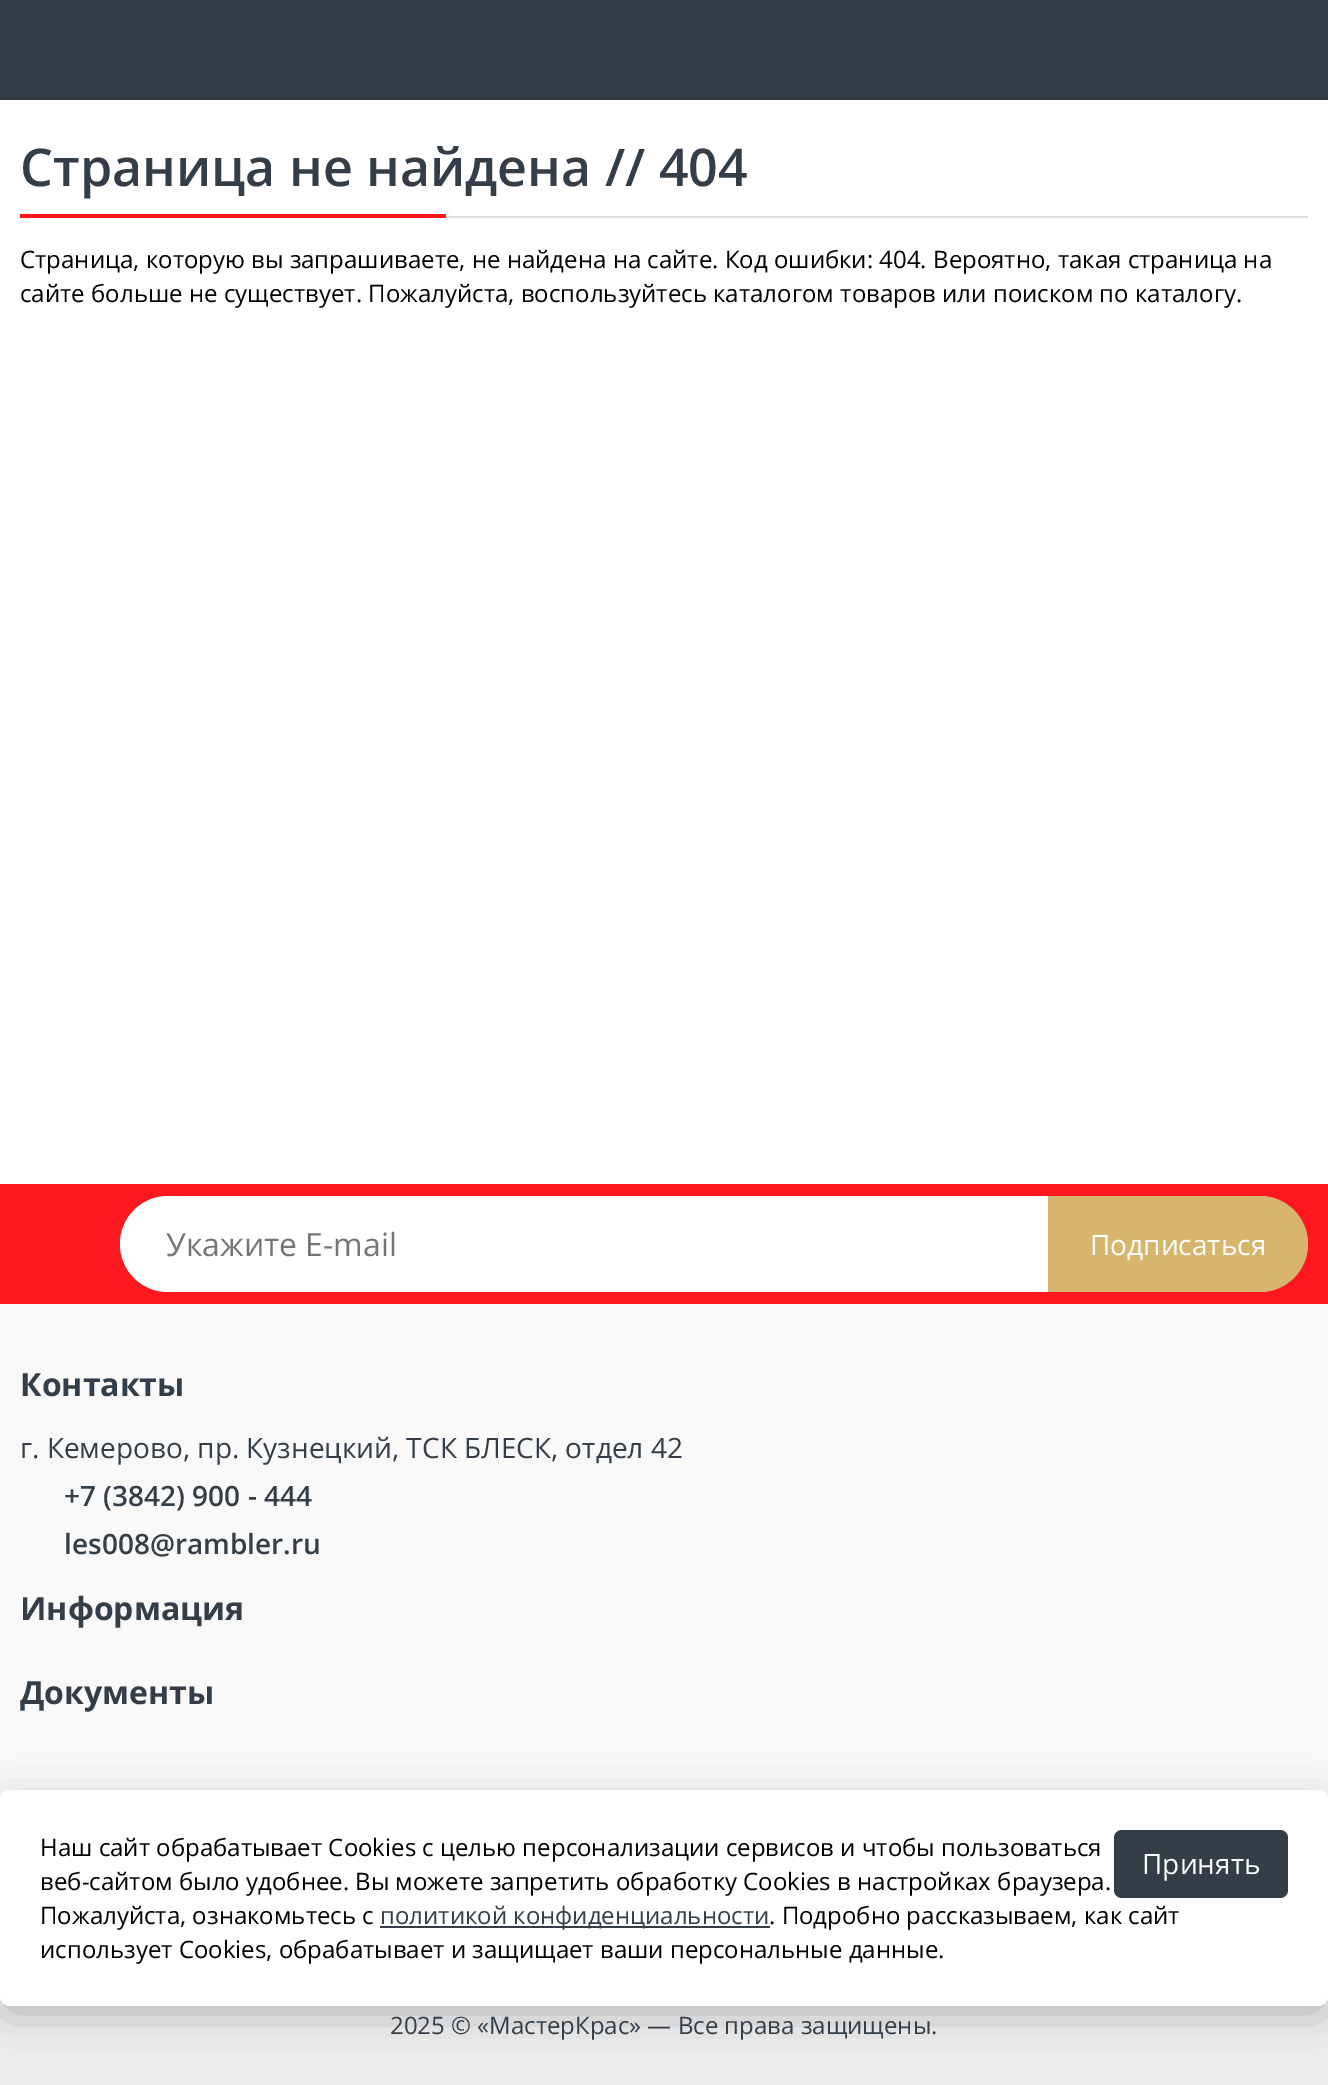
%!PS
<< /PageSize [1328 2085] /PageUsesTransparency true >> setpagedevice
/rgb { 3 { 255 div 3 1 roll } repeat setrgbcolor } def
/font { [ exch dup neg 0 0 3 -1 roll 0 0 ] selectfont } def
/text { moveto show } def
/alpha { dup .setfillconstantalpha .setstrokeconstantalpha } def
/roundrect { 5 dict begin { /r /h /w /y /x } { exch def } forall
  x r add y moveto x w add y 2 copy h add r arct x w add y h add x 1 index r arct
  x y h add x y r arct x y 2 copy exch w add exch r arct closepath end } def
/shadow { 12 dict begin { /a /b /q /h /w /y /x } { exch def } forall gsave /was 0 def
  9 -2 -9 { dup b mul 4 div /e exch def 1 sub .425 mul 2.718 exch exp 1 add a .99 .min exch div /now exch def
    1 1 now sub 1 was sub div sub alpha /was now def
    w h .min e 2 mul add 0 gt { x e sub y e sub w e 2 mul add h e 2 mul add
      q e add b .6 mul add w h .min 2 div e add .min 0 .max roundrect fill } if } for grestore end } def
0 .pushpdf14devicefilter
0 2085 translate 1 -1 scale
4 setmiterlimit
255 255 255 rgb
0 0 1328 2085 rectfill
51 62 72 rgb
0 0 1328 100 rectfill
221 221 221 rgb
446 216 862 2 rectfill
255 24 30 rgb
20 214 426 4 rectfill
249 249 249 rgb
0 1304 1328 496 rectfill
255 24 30 rgb
0 1184 1328 120 rectfill
255 255 255 rgb
168 1196 moveto 880 0 rlineto 0 96 rlineto -880 0 rlineto -26.5 0 -48 -21.5 -48 -48 rcurveto 0 -26.5 21.5 -48 48 -48 rcurveto closepath fill
215 181 109 rgb
1048 1196 moveto 212 0 rlineto 26.5 0 48 21.5 48 48 rcurveto 0 26.5 -21.5 48 -48 48 rcurveto -212 0 rlineto closepath fill
238 238 238 rgb
0 1996 1328 89 rectfill
0 0 0 rgb
6 1806 1316 204 4 23 0.3 shadow
255 255 255 rgb
0 1790 1328 216 10 roundrect fill
51 62 72 rgb
1114 1830 174 68 8 roundrect fill
380 1926 390 2 rectfill
/OpenSans-SemiBold 52 font
(Страница не найдена // 404) 20 186 text
/OpenSans-Regular 24 font
0 0 0 rgb
(Страница, которую вы запрашиваете, не найдена на сайте. Код ошибки: 404. Вероятно, такая страница на) 20 268 text
(сайте больше не существует. Пожалуйста, воспользуйтесь каталогом товаров или поиском по каталогу.) 20 302 text
/OpenSans-Regular 32 font
117 117 117 rgb
(Укажите E-mail) 166 1256 text
/OpenSans-Regular 28 font
255 255 255 rgb
(Подписаться) 1090 1255 text
/OpenSans-Bold 32 font
51 62 72 rgb
(Контакты) 20 1396 text
/OpenSans-Regular 28 font
(г. Кемерово, пр. Кузнецкий, ТСК БЛЕСК, отдел 42) 20 1458 text
/OpenSans-SemiBold 28 font
(+7 \(3842\) 900 - 444) 64 1506 text
(les008@rambler.ru) 64 1554 text
/OpenSans-Bold 32 font
(Информация) 20 1620 text
(Документы) 20 1704 text
/OpenSans-Regular 24 font
(2025 © «МастерКрас» — Все права защищены.) 390 2034 text
0 0 0 rgb
(Наш сайт обрабатывает Cookies с целью персонализации сервисов и чтобы пользоваться) 40 1856 text
/OpenSans-Regular 28 font
255 255 255 rgb
(Принять) 1142 1874 text
/OpenSans-Regular 24 font
0 0 0 rgb
(веб-сайтом было удобнее. Вы можете запретить обработку Cookies в настройках браузера.) 40 1890 text
(Пожалуйста, ознакомьтесь с) 40 1924 text
51 62 72 rgb
(политикой конфиденциальности) 380 1924 text
0 0 0 rgb
(. Подробно рассказываем, как сайт) 769 1924 text
(использует Cookies, обрабатывает и защищает ваши персональные данные.) 40 1958 text
.poppdf14devicefilter showpage
